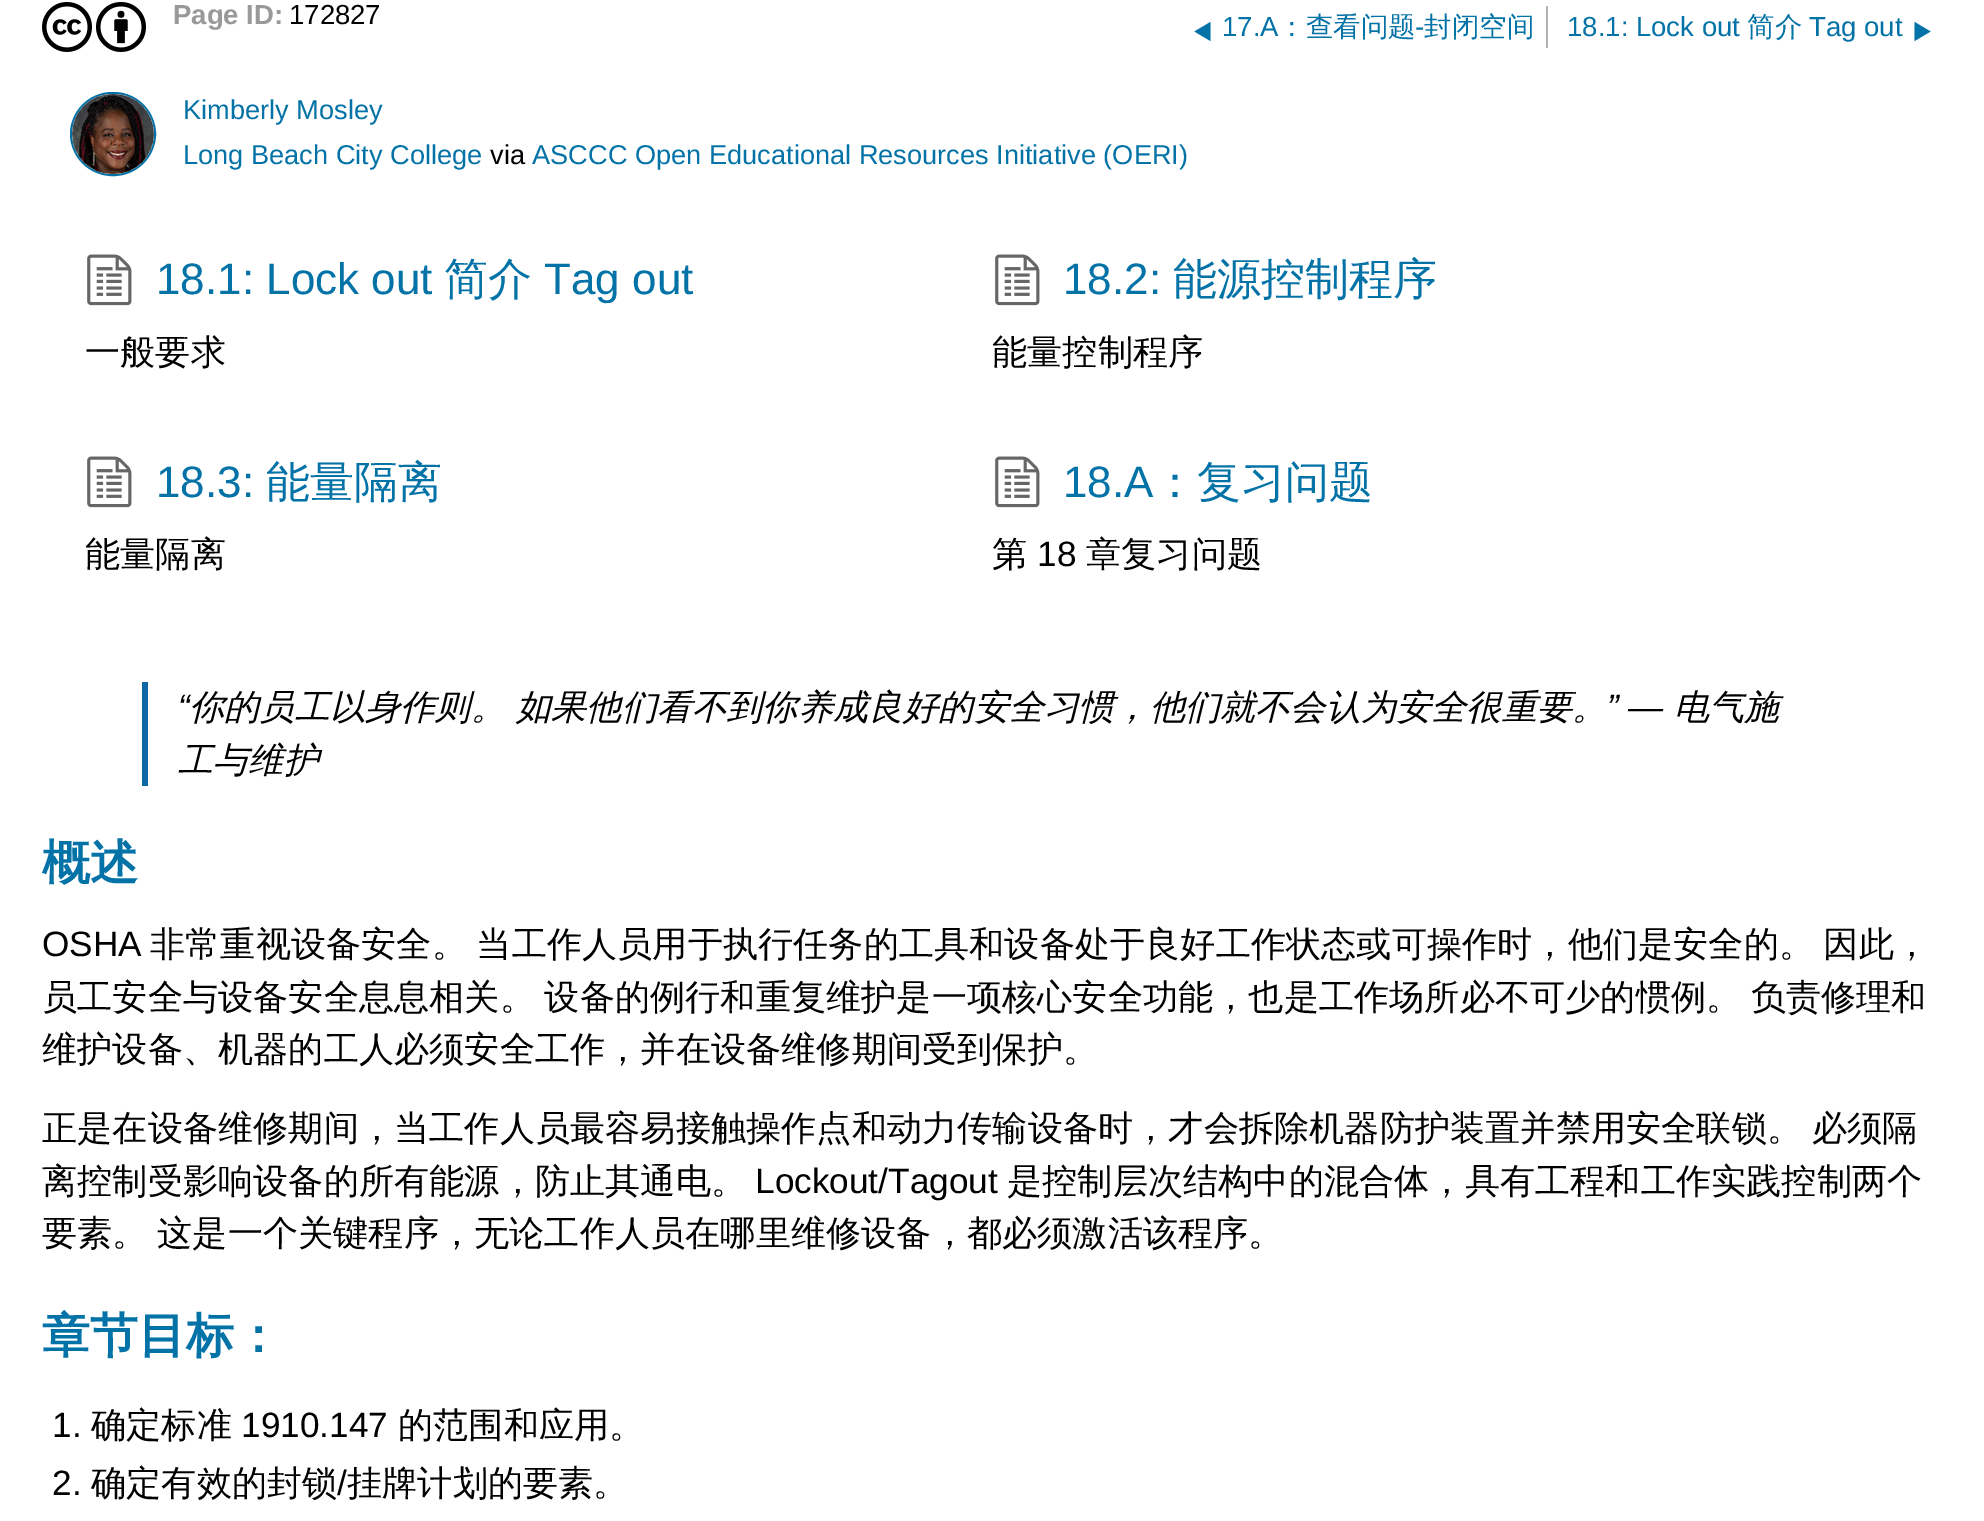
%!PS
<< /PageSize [1984 1521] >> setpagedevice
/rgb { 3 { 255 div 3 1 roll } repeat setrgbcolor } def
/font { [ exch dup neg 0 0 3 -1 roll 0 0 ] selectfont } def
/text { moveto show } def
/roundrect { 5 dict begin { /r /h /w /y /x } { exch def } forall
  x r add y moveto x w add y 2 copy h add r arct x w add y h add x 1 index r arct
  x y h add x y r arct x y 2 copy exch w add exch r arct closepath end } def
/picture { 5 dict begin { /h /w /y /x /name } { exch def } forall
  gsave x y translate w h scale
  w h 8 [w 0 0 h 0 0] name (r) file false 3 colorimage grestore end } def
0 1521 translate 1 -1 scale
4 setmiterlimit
255 255 255 rgb
0 0 1984 1521 rectfill
(img_01.rgb) 42 2 50 50 picture
(img_02.rgb) 96 2 50 50 picture
180 180 180 rgb
1546 6 2 42 rectfill
3 114 166 rgb
1210.5 22 moveto 0 19 rlineto -16 -9.5 rlineto closepath fill
1914.5 22 moveto 0 19 rlineto 16 -9.5 rlineto closepath fill
2 setlinewidth
71 93 84 82 41 roundrect stroke
(img_03.rgb) 72 94 82 80 picture
(img_04.rgb) 87 254 45 52 picture
(img_04.rgb) 995 254 45 52 picture
(img_04.rgb) 87 456 45 52 picture
(img_04.rgb) 995 456 45 52 picture
15 103 166 rgb
142 682 6 104 rectfill
/LiberationSans-Bold 27.5 font
153 153 153 rgb
(Page ID:) 173 24 text
/LiberationSans-Regular 27.5 font
0 0 0 rgb
(172827) 289 24 text
3 114 166 rgb
(17.A) 1222 36 text
/WenQuanYiZenHei-Medium 27.5 font
(：查看问题) 1278 36 text
/LiberationSans-Regular 27.5 font
(-) 1415 36 text
/WenQuanYiZenHei-Medium 27.5 font
(封闭空间) 1424 36 text
/LiberationSans-Regular 27.5 font
(18.1: Lock out) 1567 36 text
/WenQuanYiZenHei-Medium 27.5 font
(简介) 1747 36 text
/LiberationSans-Regular 27.5 font
(Tag out) 1809 36 text
/LiberationSans-Regular 27.2 font
(Kimberly Mosley) 183 119 text
(Long Beach City College) 183 164 text
0 0 0 rgb
(via) 490 164 text
3 114 166 rgb
(ASCCC Open Educational Resources Initiative \(OERI\)) 532 164 text
/LiberationSans-Regular 44 font
(18.1: Lock out) 156 294 text
/WenQuanYiZenHei-Medium 44 font
(简介) 444 294 text
/LiberationSans-Regular 44 font
(Tag out) 544 294 text
/WenQuanYiZenHei-Medium 35.2 font
0 0 0 rgb
(一般要求) 85 364 text
/LiberationSans-Regular 44 font
3 114 166 rgb
(18.2:) 1063 294 text
/WenQuanYiZenHei-Medium 44 font
(能源控制程序) 1173 294 text
/WenQuanYiZenHei-Medium 35.2 font
0 0 0 rgb
(能量控制程序) 992 364 text
/LiberationSans-Regular 44 font
3 114 166 rgb
(18.3:) 156 497 text
/WenQuanYiZenHei-Medium 44 font
(能量隔离) 266 497 text
/WenQuanYiZenHei-Medium 35.2 font
0 0 0 rgb
(能量隔离) 85 566 text
/LiberationSans-Regular 44 font
3 114 166 rgb
(18.A) 1063 497 text
/WenQuanYiZenHei-Medium 44 font
(：复习问题) 1153 497 text
/WenQuanYiZenHei-Medium 35.2 font
0 0 0 rgb
(第) 992 566 text
/LiberationSans-Regular 35.2 font
(18) 1037 566 text
/WenQuanYiZenHei-Medium 35.2 font
(章复习问题) 1086 566 text
/LiberationSans-Italic 35.2 font
(“) 178 719 text
/WenQuanYiZenHei-MediumItalic 35.2 font
(你的员工以身作则。) 189 719 text
(如果他们看不到你养成良好的安全习惯，他们就不会认为安全很重要。) 516 719 text
/LiberationSans-Italic 35.2 font
(” —) 1607 719 text
/WenQuanYiZenHei-MediumItalic 35.2 font
(电气施) 1674 719 text
(工与维护) 178 772 text
/WenQuanYiZenHei-Bold 48 font
3 114 166 rgb
(概述) 42 879 text
/LiberationSans-Regular 35.2 font
0 0 0 rgb
(OSHA) 42 956 text
/WenQuanYiZenHei-Medium 35.2 font
150 956 moveto -1 0 32 (非常重视设备安全。 当工作人员用于执行任务的工具和设备处于良好工作状态或可操作时，他们是安全的。 因此，) widthshow
42 1009 moveto -1 0 32 (员工安全与设备安全息息相关。 设备的例行和重复维护是一项核心安全功能，也是工作场所必不可少的惯例。 负责修理和) widthshow
(维护设备、机器的工人必须安全工作，并在设备维修期间受到保护。) 42 1061 text
42 1140 moveto -1 0 32 (正是在设备维修期间，当工作人员最容易接触操作点和动力传输设备时，才会拆除机器防护装置并禁用安全联锁。 必须隔) widthshow
(离控制受影响设备的所有能源，防止其通电。) 42 1193 text
/LiberationSans-Regular 35.2 font
(Lockout/Tagout) 755 1193 text
/WenQuanYiZenHei-Medium 35.2 font
(是控制层次结构中的混合体，具有工程和工作实践控制两个) 1007 1193 text
42 1245 moveto -1 0 32 (要素。 这是一个关键程序，无论工作人员在哪里维修设备，都必须激活该程序。) widthshow
/WenQuanYiZenHei-Bold 48 font
3 114 166 rgb
(章节目标：) 42 1352 text
/LiberationSans-Regular 35.2 font
0 0 0 rgb
(1.) 52 1437 text
/WenQuanYiZenHei-Medium 35.2 font
(确定标准) 91 1437 text
/LiberationSans-Regular 35.2 font
(1910.147) 241 1437 text
/WenQuanYiZenHei-Medium 35.2 font
(的范围和应用。) 398 1437 text
/LiberationSans-Regular 35.2 font
(2.) 52 1495 text
/WenQuanYiZenHei-Medium 35.2 font
(确定有效的封锁) 91 1495 text
/LiberationSans-Regular 35.2 font
(/) 337 1495 text
/WenQuanYiZenHei-Medium 35.2 font
(挂牌计划的要素。) 347 1495 text
showpage
